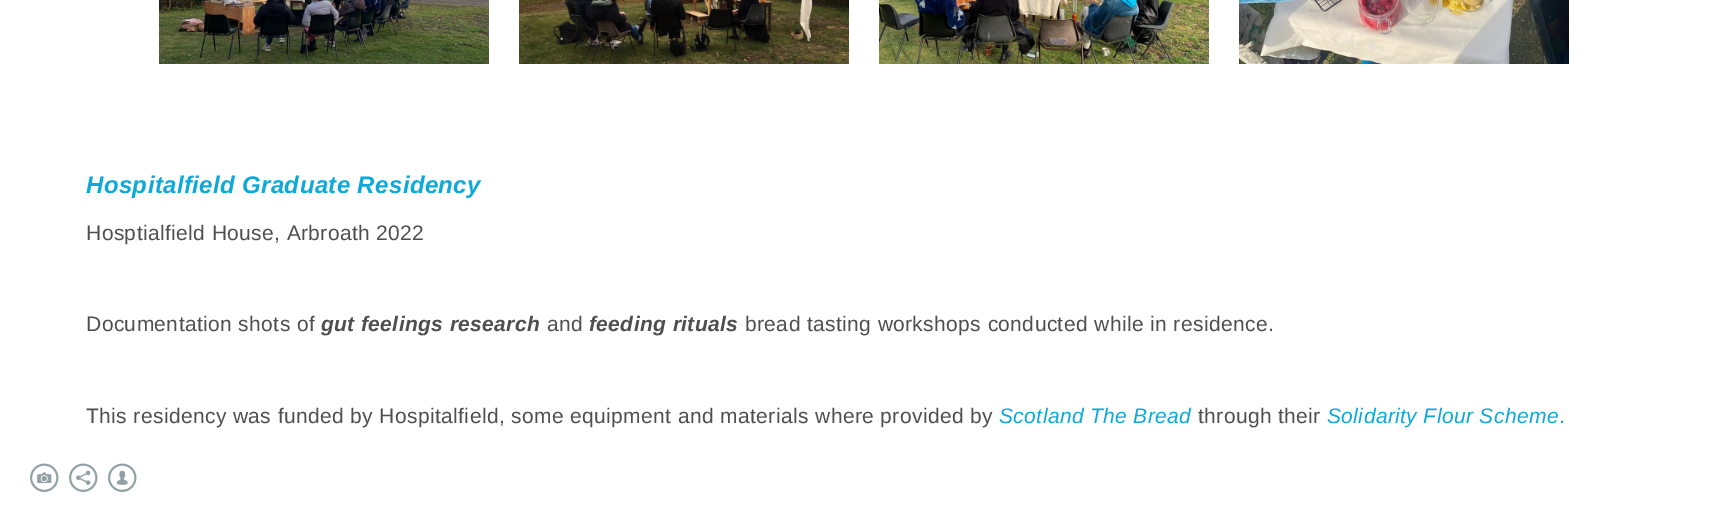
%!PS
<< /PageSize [1728 514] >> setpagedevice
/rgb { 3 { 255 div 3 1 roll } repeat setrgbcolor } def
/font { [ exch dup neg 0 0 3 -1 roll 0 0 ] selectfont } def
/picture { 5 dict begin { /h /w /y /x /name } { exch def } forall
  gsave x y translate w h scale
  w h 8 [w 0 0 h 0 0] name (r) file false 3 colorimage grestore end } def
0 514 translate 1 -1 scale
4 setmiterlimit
255 255 255 rgb
0 0 1728 514 rectfill
(img_01.rgb) 159 0 330 64 picture
(img_02.rgb) 519 0 330 64 picture
(img_03.rgb) 879 0 330 64 picture
(img_04.rgb) 1239 0 330 64 picture
(img_05.rgb) 30 463 29 29 picture
(img_06.rgb) 69 463 29 29 picture
(img_07.rgb) 108 463 29 29 picture
/LiberationSans-BoldItalic 24 font
13 169 217 rgb
86 193 moveto 0.38 0 (Hospitalfield Graduate Residency) ashow
/LiberationSans-Regular 21 font
79 79 79 rgb
86 240 moveto 0.38 0 (Hosptialfield House, Arbroath 2022) ashow
86 331 moveto 0.38 0 (Documentation shots of) ashow
/LiberationSans-BoldItalic 21 font
321 331 moveto 0.38 0 (gut feelings research) ashow
/LiberationSans-Regular 21 font
547 331 moveto 0.38 0 (and) ashow
/LiberationSans-BoldItalic 21 font
589 331 moveto 0.38 0 (feeding rituals) ashow
/LiberationSans-Regular 21 font
745 331 moveto 0.38 0 (bread tasting workshops conducted while in residence.) ashow
86 423 moveto 0.38 0 (This residency was funded by Hospitalfield, some equipment and materials where provided by) ashow
/LiberationSans-Italic 21 font
13 169 217 rgb
999 423 moveto 0.38 0 (Scotland The Bread) ashow
/LiberationSans-Regular 21 font
79 79 79 rgb
1198 423 moveto 0.38 0 (through their) ashow
/LiberationSans-Italic 21 font
13 169 217 rgb
1327 423 moveto 0.38 0 (Solidarity Flour Scheme) ashow
/LiberationSans-Regular 21 font
1559 423 moveto 0.38 0 (.) ashow
showpage
